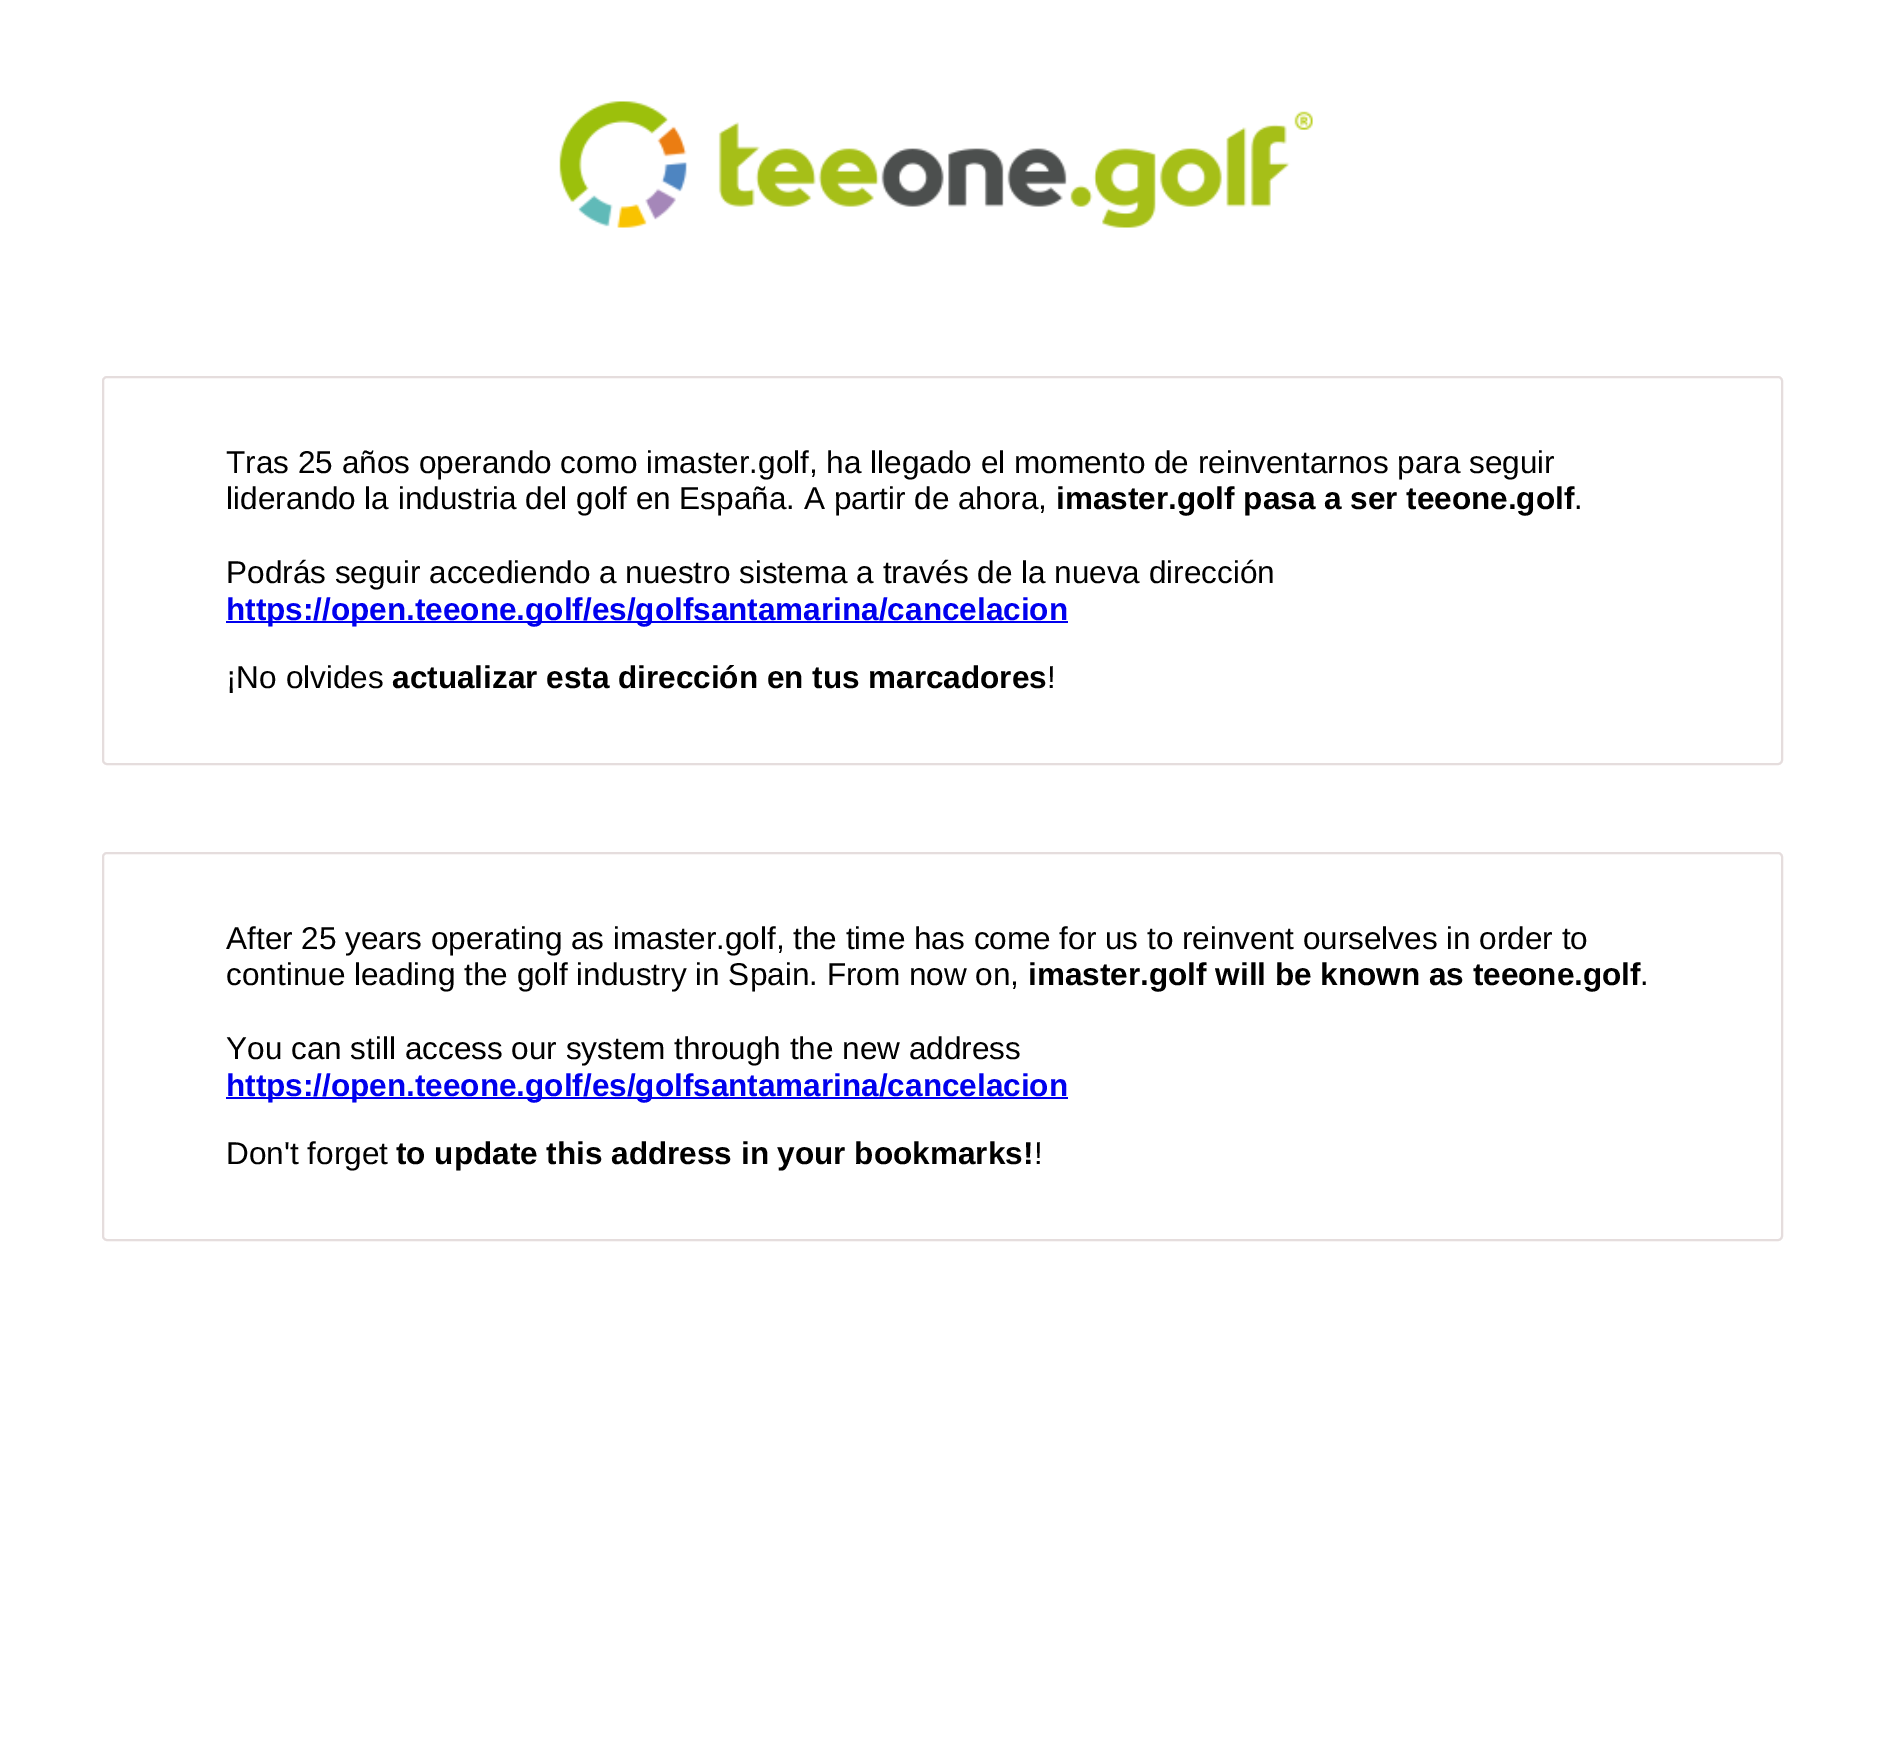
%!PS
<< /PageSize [1884 1748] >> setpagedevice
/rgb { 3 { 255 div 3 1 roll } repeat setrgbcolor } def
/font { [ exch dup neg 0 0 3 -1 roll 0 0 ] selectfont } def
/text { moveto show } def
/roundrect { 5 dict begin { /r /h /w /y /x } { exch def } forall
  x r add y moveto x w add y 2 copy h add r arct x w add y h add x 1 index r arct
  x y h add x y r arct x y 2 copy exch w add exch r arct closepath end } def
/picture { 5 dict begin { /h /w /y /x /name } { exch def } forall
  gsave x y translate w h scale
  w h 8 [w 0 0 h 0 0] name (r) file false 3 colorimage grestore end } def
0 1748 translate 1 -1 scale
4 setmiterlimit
255 255 255 rgb
0 0 1884 1748 rectfill
(img_01.rgb) 559 101 754 127 picture
229 221 221 rgb
2 setlinewidth
103 377 1679 387 4 roundrect stroke
0 0 238 rgb
226 621 842 2 rectfill
229 221 221 rgb
103 853 1679 387 4 roundrect stroke
0 0 238 rgb
226 1097 842 2 rectfill
/LiberationSans-Regular 31.5 font
0 0 0 rgb
(Tras 25 años operando como imaster.golf, ha llegado el momento de reinventarnos para seguir) 226 473 text
(liderando la industria del golf en España. A partir de ahora,) 226 509 text
/LiberationSans-Bold 31.5 font
(imaster.golf pasa a ser teeone.golf) 1056 509 text
/LiberationSans-Regular 31.5 font
(.) 1574 509 text
(Podrás seguir accediendo a nuestro sistema a través de la nueva dirección) 226 583 text
/LiberationSans-Bold 31.5 font
0 0 238 rgb
(https://open.teeone.golf/es/golfsantamarina/cancelacion) 226 620 text
/LiberationSans-Regular 31.5 font
0 0 0 rgb
(¡No olvides) 226 688 text
/LiberationSans-Bold 31.5 font
(actualizar esta dirección en tus marcadores) 392 688 text
/LiberationSans-Regular 31.5 font
(!) 1047 688 text
(After 25 years operating as imaster.golf, the time has come for us to reinvent ourselves in order to) 226 949 text
(continue leading the golf industry in Spain. From now on,) 226 985 text
/LiberationSans-Bold 31.5 font
(imaster.golf will be known as teeone.golf) 1028 985 text
/LiberationSans-Regular 31.5 font
(.) 1640 985 text
(You can still access our system through the new address) 226 1059 text
/LiberationSans-Bold 31.5 font
0 0 238 rgb
(https://open.teeone.golf/es/golfsantamarina/cancelacion) 226 1096 text
/LiberationSans-Regular 31.5 font
0 0 0 rgb
(Don't forget) 226 1164 text
/LiberationSans-Bold 31.5 font
(to update this address in your bookmarks!) 396 1164 text
/LiberationSans-Regular 31.5 font
(!) 1034 1164 text
showpage
